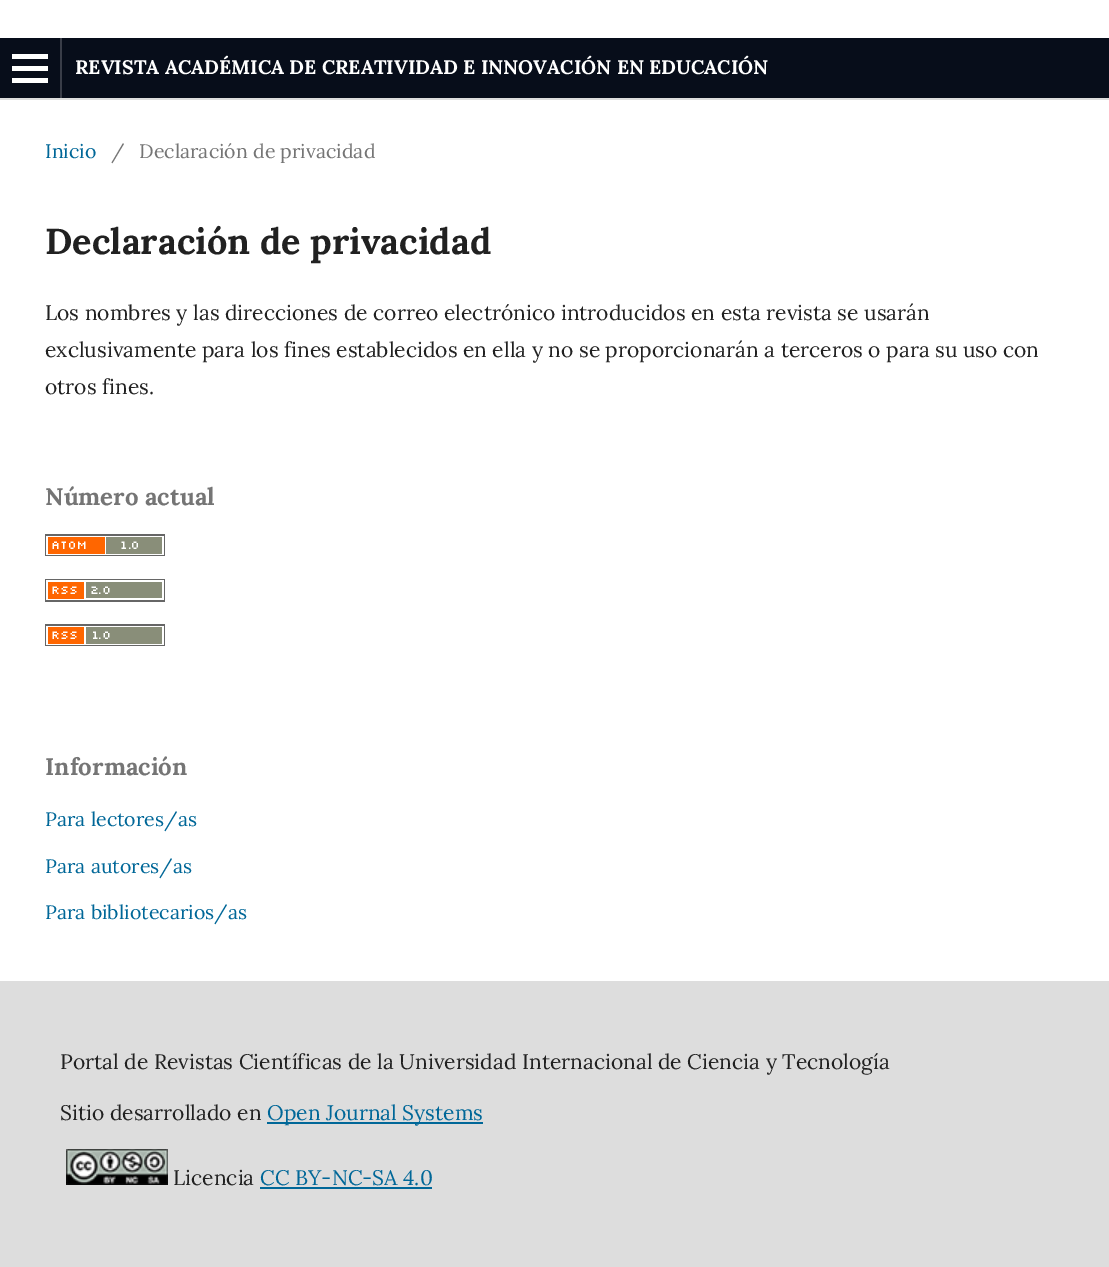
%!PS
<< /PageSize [1109 1267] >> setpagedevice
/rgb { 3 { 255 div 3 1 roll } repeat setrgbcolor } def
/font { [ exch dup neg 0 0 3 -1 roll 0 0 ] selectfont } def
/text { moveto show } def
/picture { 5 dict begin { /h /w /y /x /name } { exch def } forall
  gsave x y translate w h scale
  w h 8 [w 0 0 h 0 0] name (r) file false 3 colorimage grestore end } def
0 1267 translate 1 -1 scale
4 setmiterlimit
255 255 255 rgb
0 0 1109 1267 rectfill
7 13 26 rgb
0 38 1109 60 rectfill
221 221 221 rgb
0 98 1109 2 rectfill
57 61 72 rgb
2 98 moveto 60 0 rlineto 0 -60 rlineto -2 0 rlineto 0 60 rlineto closepath fill
255 255 255 rgb
12 78 36 5 rectfill
12 54 36 5 rectfill
12 66 36 5 rectfill
(img_01.rgb) 45 534 120 22 picture
(img_02.rgb) 45 579 120 23 picture
(img_03.rgb) 45 624 120 22 picture
221 221 221 rgb
0 981 1109 286 rectfill
0 103 152 rgb
267 1122 216 2 rectfill
(img_04.rgb) 66 1149 102 36 picture
260 1187 172 2 rectfill
/Lora-Bold 19.55 font
255 255 255 rgb
(REVISTA ACADÉMICA DE CREATIVIDAD E INNOVACIÓN EN EDUCACIÓN) 75 74 text
/Lora-Regular 19.55 font
0 103 152 rgb
(Inicio) 45 158 text
117 117 117 rgb
(/) 111 158 text
(Declaración de privacidad) 139 158 text
/Lora-Bold 36 font
33 33 33 rgb
(Declaración de privacidad) 45 254 text
/Lora-Regular 21 font
(Los nombres y las direcciones de correo electrónico introducidos en esta revista se usarán) 45 320 text
(exclusivamente para los fines establecidos en ella y no se proporcionarán a terceros o para su uso con) 45 357 text
(otros fines.) 45 394 text
/Lora-Bold 24 font
117 117 117 rgb
(Número actual) 45 505 text
(Información) 45 775 text
/Lora-Regular 19.55 font
0 103 152 rgb
(Para lectores/as) 45 826 text
(Para autores/as) 45 873 text
(Para bibliotecarios/as) 45 919 text
/Lora-Regular 21 font
33 33 33 rgb
(Portal de Revistas Científicas de la Universidad Internacional de Ciencia y Tecnología) 60 1069 text
(Sitio desarrollado en) 60 1120 text
0 103 152 rgb
(Open Journal Systems) 267 1120 text
33 33 33 rgb
(Licencia) 173 1185 text
0 103 152 rgb
(CC BY-NC-SA 4.0) 260 1185 text
showpage
